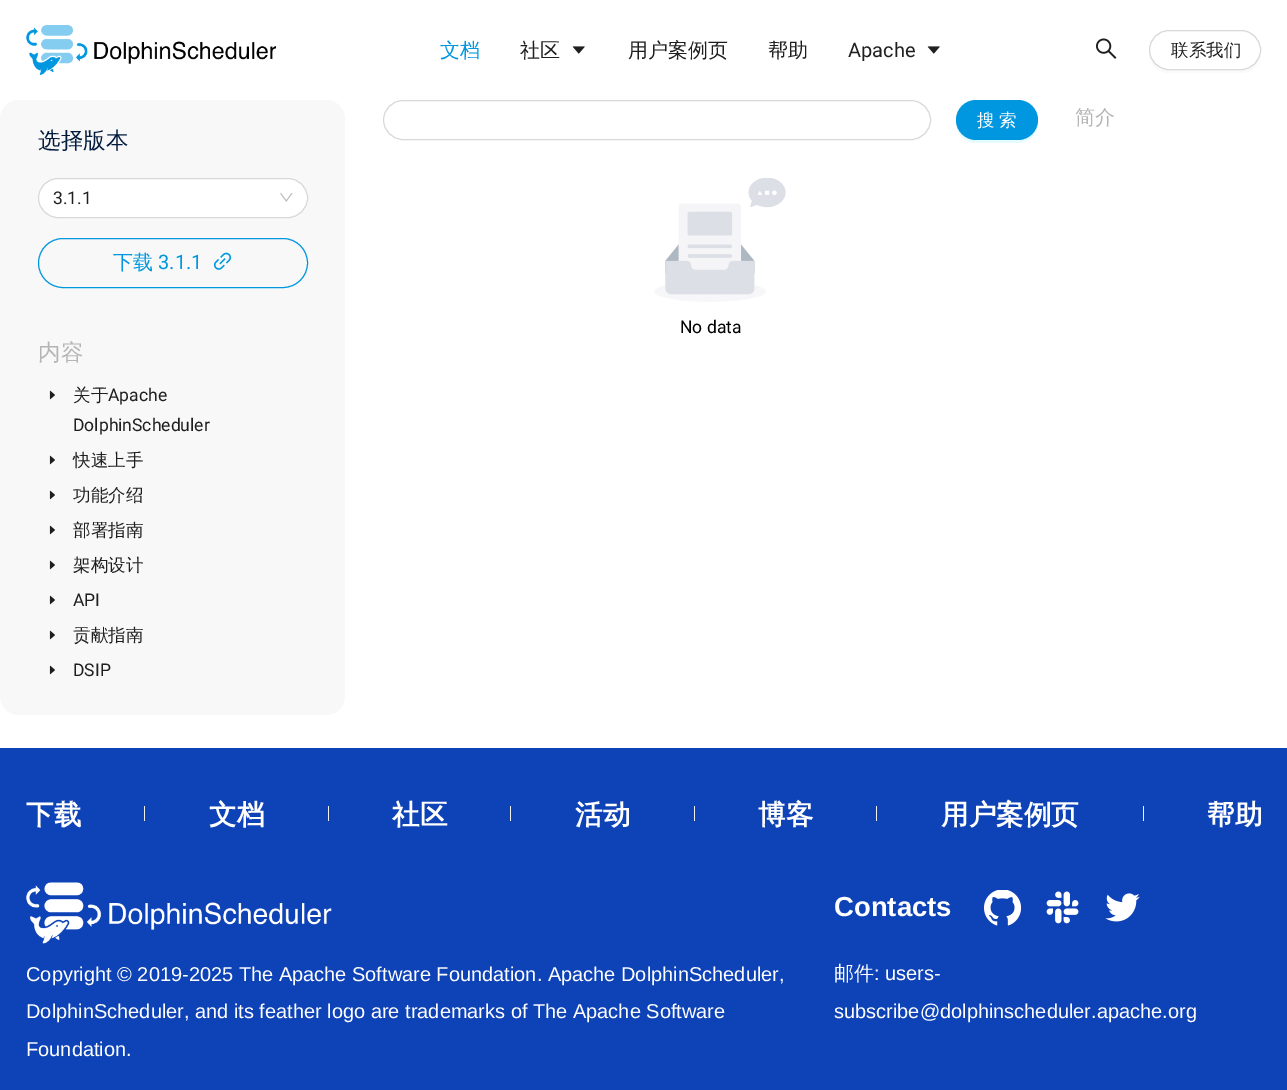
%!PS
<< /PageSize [1287 1090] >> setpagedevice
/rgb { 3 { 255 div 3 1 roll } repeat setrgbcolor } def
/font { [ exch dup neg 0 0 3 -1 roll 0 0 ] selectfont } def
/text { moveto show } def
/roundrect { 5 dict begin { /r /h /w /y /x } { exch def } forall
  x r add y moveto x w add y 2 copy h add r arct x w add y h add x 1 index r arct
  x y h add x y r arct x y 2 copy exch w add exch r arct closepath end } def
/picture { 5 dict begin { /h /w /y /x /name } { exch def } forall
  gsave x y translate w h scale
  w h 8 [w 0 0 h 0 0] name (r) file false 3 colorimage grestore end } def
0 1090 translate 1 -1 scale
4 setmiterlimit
255 255 255 rgb
0 0 1287 1090 rectfill
(img_01.rgb) 26 25 251 50 picture
(img_02.rgb) 572 46 13 8 picture
(img_02.rgb) 927 46 13 8 picture
(img_03.rgb) 1096 38 21 21 picture
250 250 250 rgb
1149 53 moveto 0 11 9 20 20 20 rcurveto 72 0 rlineto 11 0 20 -9 20 -20 rcurveto -2 10 -10 17 -20 17 rcurveto -72 0 rlineto -10 0 -18 -7 -20 -17 rcurveto closepath fill
217 217 217 rgb
1149.5 30.5 111 39 19.5 roundrect stroke
248 248 248 rgb
0 100 345 615 19 roundrect fill
255 255 255 rgb
38.5 178.5 269 39 19.5 roundrect gsave fill grestore
217 217 217 rgb
stroke
(img_04.rgb) 280 193 13 9 picture
0 151 224 rgb
38.5 238.5 269 49 24.5 roundrect stroke
(img_05.rgb) 213 252 19 18 picture
(img_06.rgb) 49 390 6 10 picture
(img_06.rgb) 49 455 6 10 picture
(img_06.rgb) 49 490 6 10 picture
(img_06.rgb) 49 525 6 10 picture
(img_06.rgb) 49 560 6 10 picture
(img_06.rgb) 49 595 6 10 picture
(img_06.rgb) 49 630 6 10 picture
(img_06.rgb) 49 665 6 10 picture
217 217 217 rgb
383.5 100.5 547 39 19.5 roundrect stroke
230 251 255 rgb
956 120 moveto 0 3 rlineto 0 11 9 20 20 20 rcurveto 42 0 rlineto 11 0 20 -9 20 -20 rcurveto -1 -5 rlineto 1 2 rlineto 0 11 -9 20 -20 20 rcurveto -42 0 rlineto -11 0 -20 -9 -20 -20 rcurveto closepath fill
0 151 224 rgb
956 100 82 40 20 roundrect fill
(img_07.rgb) 654 178 132 124 picture
14 66 183 rgb
0 748 1287 342 rectfill
240 240 240 rgb
144 806 1 15 rectfill
328 806 1 15 rectfill
510 806 1 15 rectfill
694 806 1 15 rectfill
876 806 1 15 rectfill
1143 806 1 15 rectfill
(img_08.rgb) 26 882 306 62 picture
(img_09.rgb) 984 890 37 36 picture
(img_10.rgb) 1046 891 33 33 picture
(img_11.rgb) 1105 893 35 29 picture
/WenQuanYiZenHei-Medium 20 font
0 151 224 rgb
(文档) 440 57 text
31 31 31 rgb
(社区) 520 57 text
(用户案例页) 628 57 text
(帮助) 768 57 text
/Roboto-Regular 20 font
(Apache) 848 57 text
/WenQuanYiZenHei-Medium 17.5 font
(联系我们) 1171 56 text
/WenQuanYiZenHei-Medium 22.5 font
3 27 62 rgb
(选择版本) 38 148 text
/Roboto-Regular 17.5 font
31 31 31 rgb
(3.1.1) 53 204 text
/WenQuanYiZenHei-Medium 20 font
0 151 224 rgb
(下载) 113 269 text
/Roboto-Regular 20 font
(3.1.1) 158 269 text
/WenQuanYiZenHei-Medium 22.5 font
181 181 181 rgb
(内容) 38 360 text
/WenQuanYiZenHei-Medium 17.5 font
31 31 31 rgb
(关于) 73 401 text
/Roboto-Regular 17.5 font
(Apache) 108 401 text
(DolphinScheduler) 73 431 text
/WenQuanYiZenHei-Medium 17.5 font
(快速上手) 73 466 text
(功能介绍) 73 501 text
(部署指南) 73 536 text
(架构设计) 73 571 text
/Roboto-Regular 17.5 font
(API) 73 606 text
/WenQuanYiZenHei-Medium 17.5 font
(贡献指南) 73 641 text
/Roboto-Regular 17.5 font
(DSIP) 73 676 text
/WenQuanYiZenHei-Medium 17.5 font
255 255 255 rgb
977 126 moveto -1 0 32 (搜 索) widthshow
/Roboto-Regular 17.5 font
0 0 0 rgb
(No data) 680 333 text
/WenQuanYiZenHei-Medium 20 font
181 181 181 rgb
(简介) 1075 124 text
/WenQuanYiZenHei-Bold 27.5 font
255 255 255 rgb
(下载) 26 824 text
(文档) 209 824 text
(社区) 392 824 text
(活动) 575 824 text
(博客) 758 824 text
(用户案例页) 941 824 text
(帮助) 1207 824 text
/LiberationSans-Regular 20 font
(Copyright © 2019-2025 The Apache Software Foundation. Apache DolphinScheduler,) 26 981 text
(DolphinScheduler, and its feather logo are trademarks of The Apache Software) 26 1018 text
(Foundation.) 26 1056 text
/LiberationSans-Bold 27.5 font
(Contacts) 834 916 text
/WenQuanYiZenHei-Medium 20 font
(邮件) 834 980 text
/LiberationSans-Regular 20 font
(: users-) 874 980 text
(subscribe@dolphinscheduler.apache.org) 834 1018 text
showpage
